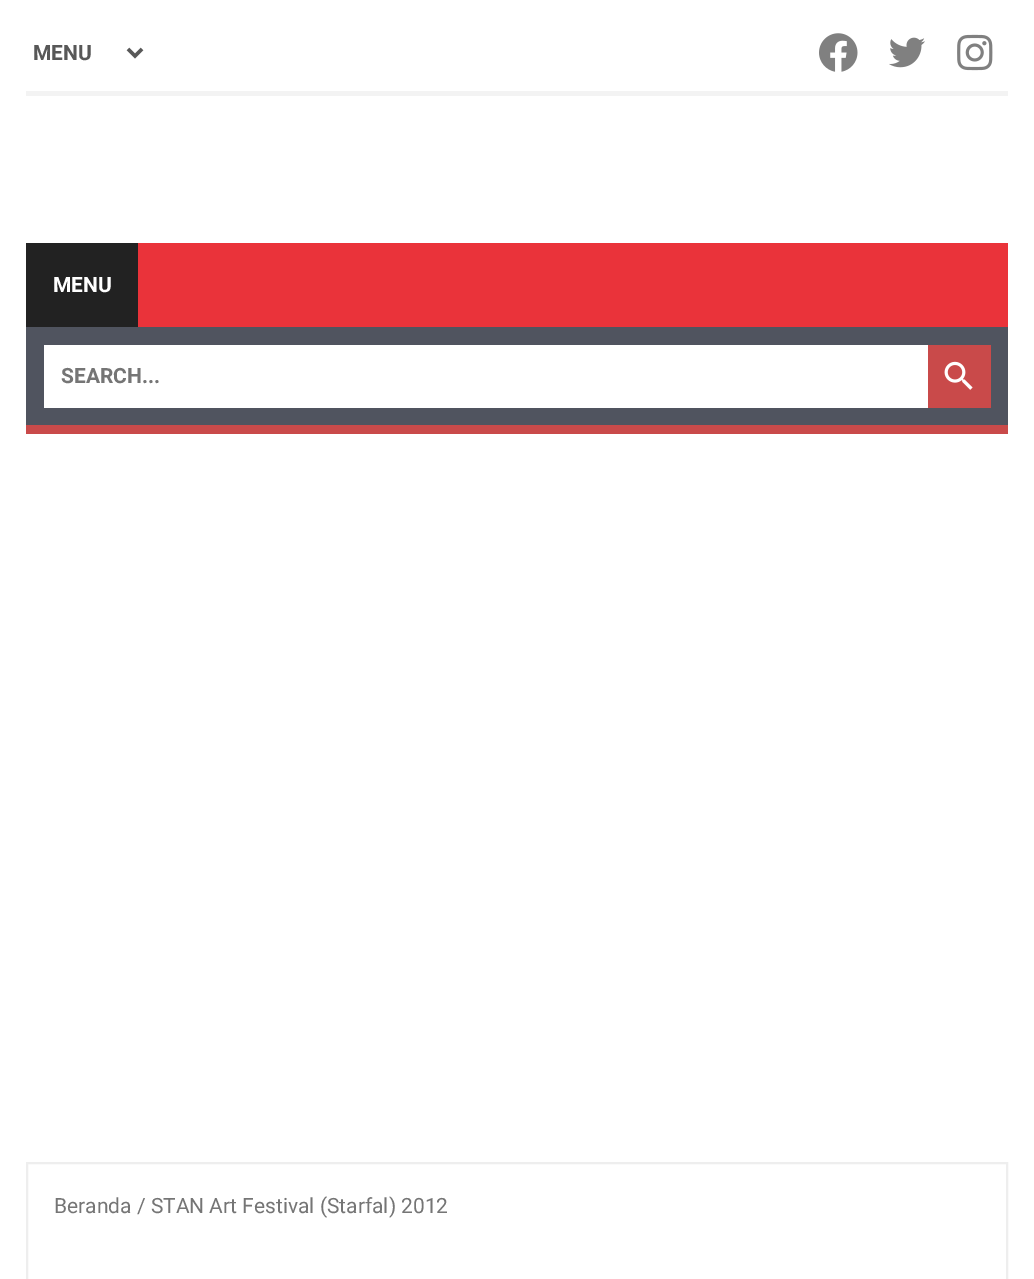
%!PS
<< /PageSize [1034 1279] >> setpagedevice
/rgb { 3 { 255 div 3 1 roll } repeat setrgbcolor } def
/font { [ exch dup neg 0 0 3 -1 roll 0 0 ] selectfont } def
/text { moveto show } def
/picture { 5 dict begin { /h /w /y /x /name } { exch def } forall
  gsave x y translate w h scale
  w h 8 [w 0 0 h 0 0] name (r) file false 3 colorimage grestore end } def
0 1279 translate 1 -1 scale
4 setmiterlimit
255 255 255 rgb
0 0 1034 1279 rectfill
243 243 243 rgb
26 91 982 5 rectfill
88 88 88 rgb
3.5 setlinewidth
128 49 moveto 7 7 rlineto 7 -7 rlineto stroke
(img_01.rgb) 819 33 39 39 picture
(img_02.rgb) 889 37 36 31 picture
(img_03.rgb) 957 34 36 37 picture
234 51 58 rgb
138 243 870 84 rectfill
34 34 34 rgb
26 243 112 84 rectfill
80 84 95 rgb
26 327 982 98 rectfill
255 255 255 rgb
44 345 884 63 rectfill
201 74 74 rgb
928 345 63 63 rectfill
(img_04.rgb) 944 361 29 29 picture
26 425 982 9 rectfill
238 238 238 rgb
2 setlinewidth
27 1163 980 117 rectstroke
/Roboto-Bold 21 font
88 88 88 rgb
(MENU) 33 60 text
255 255 255 rgb
(MENU) 53 292 text
117 117 117 rgb
(SEARCH...) 61 383 text
/Roboto-Regular 21 font
(Beranda / STAN Art Festival \(Starfal\) 2012) 54 1213 text
showpage
